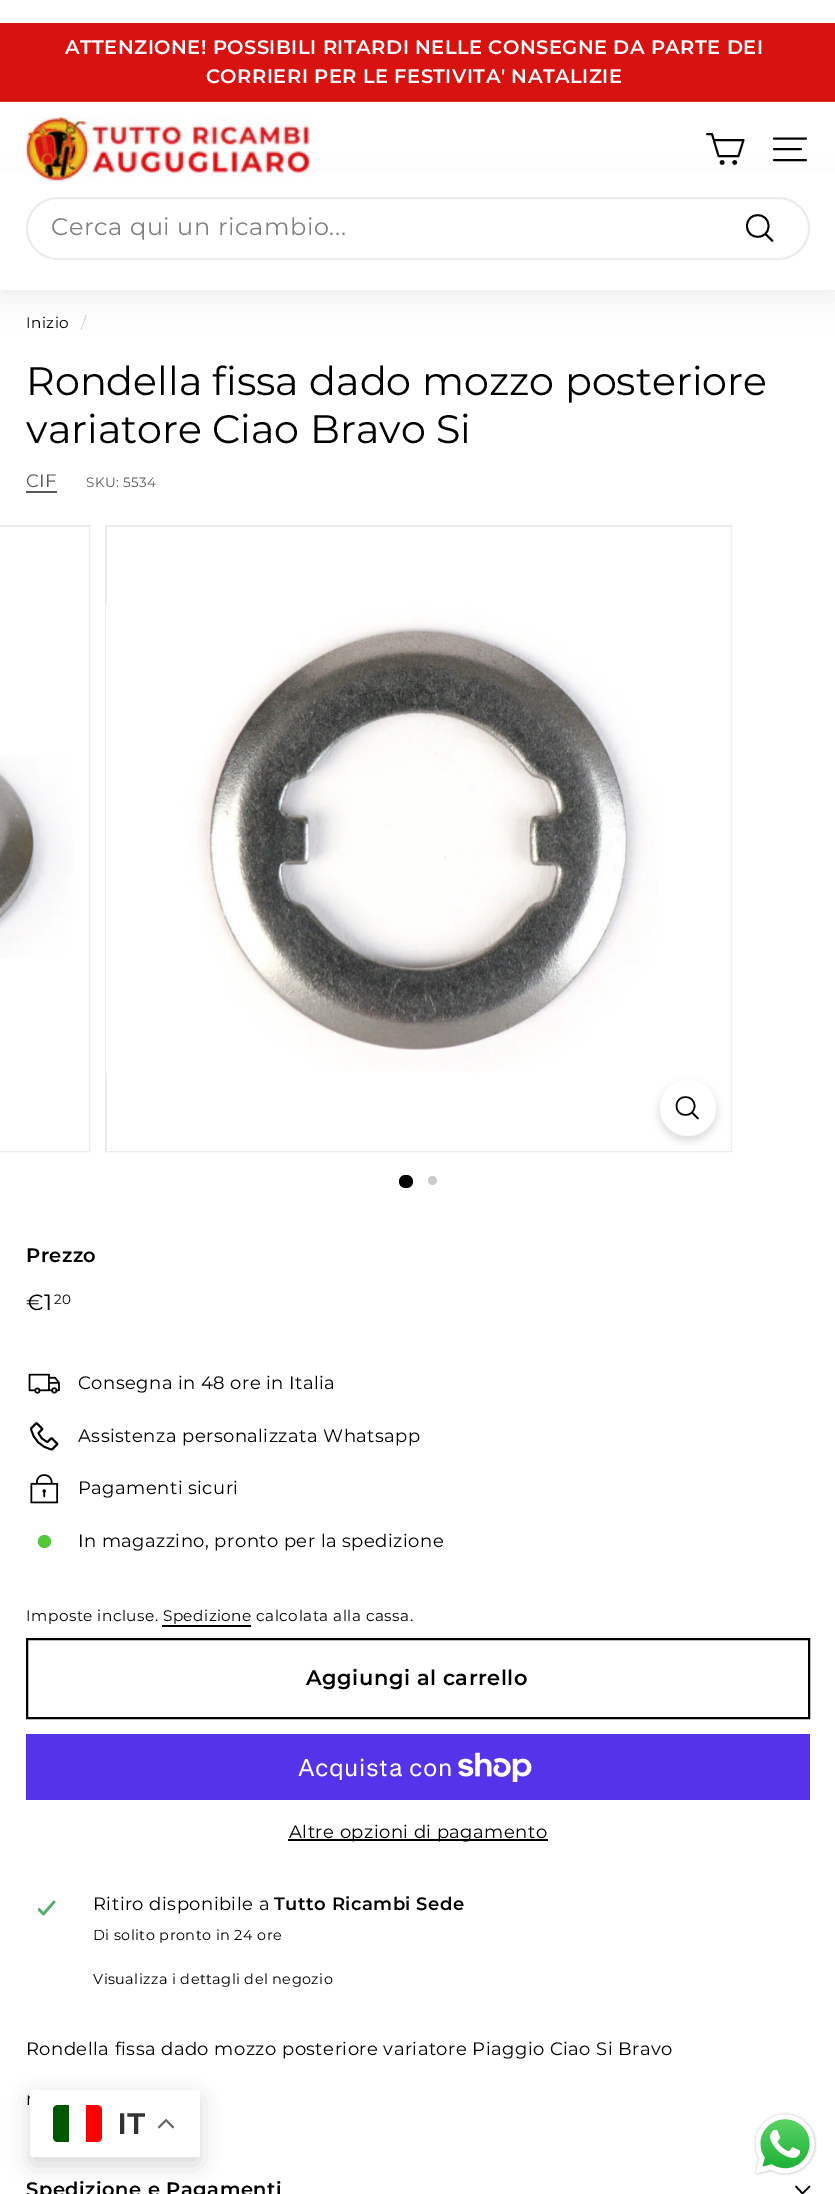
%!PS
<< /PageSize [835 2194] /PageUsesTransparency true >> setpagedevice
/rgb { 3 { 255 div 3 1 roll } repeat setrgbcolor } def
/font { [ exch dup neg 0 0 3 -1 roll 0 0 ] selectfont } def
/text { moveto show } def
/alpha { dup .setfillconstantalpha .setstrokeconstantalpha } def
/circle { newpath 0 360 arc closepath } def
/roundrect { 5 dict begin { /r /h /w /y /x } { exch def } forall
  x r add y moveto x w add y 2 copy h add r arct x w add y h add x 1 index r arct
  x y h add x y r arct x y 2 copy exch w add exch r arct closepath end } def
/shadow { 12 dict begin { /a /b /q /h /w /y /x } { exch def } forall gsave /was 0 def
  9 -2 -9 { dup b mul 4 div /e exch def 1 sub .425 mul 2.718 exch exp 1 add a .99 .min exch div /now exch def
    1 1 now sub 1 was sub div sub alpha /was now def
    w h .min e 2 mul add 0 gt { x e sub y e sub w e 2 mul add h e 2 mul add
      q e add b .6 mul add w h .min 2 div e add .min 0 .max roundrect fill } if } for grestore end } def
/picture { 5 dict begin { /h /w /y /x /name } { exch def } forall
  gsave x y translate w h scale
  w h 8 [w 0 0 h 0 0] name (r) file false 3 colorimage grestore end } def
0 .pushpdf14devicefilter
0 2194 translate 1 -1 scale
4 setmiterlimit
255 255 255 rgb
0 0 835 2194 rectfill
216 18 15 rgb
0 23 835 79 rectfill
0.15 alpha
255 255 255 rgb
0 101 835 1 rectfill
1 alpha
0 0 0 rgb
0 197 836 93 0 19 0.1 shadow
255 255 255 rgb
0 173 835 117 rectfill
(img_01.rgb) 25 117 289 65 picture
0 0 0 rgb
1.9 setlinewidth
1 setlinecap
1 setlinejoin
714 140 moveto 29.5 0 rlineto -5 16 rlineto -20 0 rlineto -6.5 -22 rlineto -5 0 rlineto stroke
0 setlinecap
0 setlinejoin
722.1 162.5 1.3 circle stroke
734.7 162.5 1.3 circle gsave fill grestore
stroke
1 setlinecap
1 setlinejoin
774 138.5 moveto 32 0 rlineto 774 149 moveto 27 0 rlineto 774 160 moveto 32 0 rlineto stroke
239 235 235 rgb
2 setlinewidth
0 setlinecap
0 setlinejoin
27 198 782 61 30.5 roundrect stroke
0 0 0 rgb
1.8 setlinewidth
1 setlinecap
1 setlinejoin
768.5 226 moveto 0 14.5 -21.5 14.5 -21.5 0 rcurveto 0 -14.5 21.5 -14.5 21.5 0 rcurveto closepath 772.5 241 moveto -7 -7 rlineto stroke
89 89 89 rgb
26 491 31 2 rectfill
239 235 235 rgb
2 setlinewidth
0 setlinecap
0 setlinejoin
-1 526 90 625 rectstroke
255 255 255 rgb
0 527 89 624 rectfill
(img_02.rgb) 0 755 73 203 picture
239 235 235 rgb
106 526 625 625 rectstroke
255 255 255 rgb
107 527 624 624 rectfill
(img_03.rgb) 106 603 552 470 picture
0 0 0 rgb
660 1085 56 55 27.5 4.5 0.15 shadow
255 255 255 rgb
688 1108 28 circle fill
0 0 0 rgb
1.5 setlinewidth
1 setlinecap
1 setlinejoin
694.5 1106 moveto 0 12 -18 12 -18 0 rcurveto 0 -12 18 -12 18 0 rcurveto closepath 698 1118.5 moveto -6 -6 rlineto stroke
399 1175 14 13 6.5 roundrect fill
204 204 204 rgb
432.5 1180.5 4.5 circle fill
(img_04.rgb) 28 1373 32 21 picture
0 0 0 rgb
1.8 setlinewidth
36.5 1423 moveto 6 6 rlineto -4 4 rlineto 1.5 4 4 7 9 9 rcurveto 4 -4 rlineto 6 6 rlineto -5.5 5.5 rlineto -11.5 -2.5 -18.5 -9.5 -21 -21 rcurveto closepath stroke
(img_05.rgb) 30 1474 29 30 picture
84 198 58 rgb
44.5 1541.5 6.5 circle fill
0 0 0 rgb
162 1625 89 2 rectfill
2 setlinewidth
0 setlinecap
0 setlinejoin
27 1639 782 79 rectstroke
84 51 235 rgb
26 1734 784 66 rectfill
(img_06.rgb) 458 1752 74 30 picture
0 0 0 rgb
288 1839 260 2 rectfill
(img_07.rgb) 38 1900 18 16 picture
1.6 setlinewidth
1 setlinecap
1 setlinejoin
796 2186.5 moveto 6.5 7 rlineto 7 -7 rlineto stroke
(img_08.rgb) 754 2112 63 64 picture
30 2097 170 68 3 11 0.15 shadow
/Montserrat-SemiBold 19.5 font
255 255 255 rgb
65 54 moveto 0.45 0 (ATTENZIONE! POSSIBILI RITARDI NELLE CONSEGNE DA PARTE DEI) ashow
206 83 moveto 0.45 0 (CORRIERI PER LE FESTIVITA' NATALIZIE) ashow
/Montserrat-Regular 24 font
128 128 128 rgb
51 235 moveto 0.6 0 (Cerca qui un ricambio...) ashow
/Montserrat-Regular 15.3 font
0 0 0 rgb
26 328 moveto 0.45 0 (Inizio) ashow
204 204 204 rgb
81 328 moveto 0.45 0 (/) ashow
/Montserrat-Regular 39.7 font
0 0 0 rgb
(Rondella fissa dado mozzo posteriore) 26 395 text
(variatore Ciao Bravo Si) 26 443 text
/Montserrat-Regular 18 font
89 89 89 rgb
26 487 moveto 0.45 0 (CIF) ashow
/Montserrat-Regular 13.5 font
86 487 moveto 0.45 0 (SKU: 5534) ashow
/Montserrat-SemiBold 19.5 font
0 0 0 rgb
26 1262 moveto 0.45 0 (Prezzo) ashow
/Montserrat-Regular 22 font
26 1310 moveto 0.45 0 (€1) ashow
/Montserrat-Regular 13.5 font
54 1304 moveto 0.45 0 (20) ashow
/Montserrat-Regular 18 font
78 1389 moveto 0.45 0 (Consegna in 48 ore in Italia) ashow
78 1442 moveto 0.45 0 (Assistenza personalizzata Whatsapp) ashow
78 1494 moveto 0.45 0 (Pagamenti sicuri) ashow
78 1547 moveto 0.45 0 (In magazzino, pronto per la spedizione) ashow
/Montserrat-Regular 15.3 font
26 1621 moveto 0.45 0 (Imposte incluse. Spedizione calcolata alla cassa.) ashow
/Montserrat-SemiBold 21 font
306 1685 moveto 0.5 0 (Aggiungi al carrello) ashow
/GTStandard-Regular 24 font
255 255 255 rgb
298 1776 moveto 0.45 0 (Acquista con) ashow
/Montserrat-Regular 18 font
0 0 0 rgb
289 1838 moveto 0.45 0 (Altre opzioni di pagamento) ashow
93 1910 moveto 0.45 0 (Ritiro disponibile a) ashow
/Montserrat-SemiBold 18 font
274 1910 moveto 0.45 0 (Tutto Ricambi Sede) ashow
/Montserrat-Regular 14.4 font
93 1940 moveto 0.45 0 (Di solito pronto in 24 ore) ashow
93 1984 moveto 0.45 0 (Visualizza i dettagli del negozio) ashow
/Montserrat-Regular 18 font
26 2055 moveto 0.45 0 (Rondella fissa dado mozzo posteriore variatore Piaggio Ciao Si Bravo) ashow
26 2105 moveto 0.45 0 (r) ashow
/Montserrat-SemiBold 19.5 font
26 2196 moveto 0.5 0 (Spedizione e Pagamenti) ashow
255 255 255 rgb
30 2090 170 67 3 roundrect fill
0 87 0 rgb
58 2105 moveto 11 0 rlineto 0 37 rlineto -11 0 rlineto -3 0 -5 -2 -5 -5 rcurveto 0 -27 rlineto 0 -3 2 -5 5 -5 rcurveto closepath fill
252 0 0 rgb
86 2105 moveto 11 0 rlineto 3 0 5 2 5 5 rcurveto 0 27 rlineto 0 3 -2 5 -5 5 rcurveto -11 0 rlineto closepath fill
/LiberationSans-Bold 30 font
51 51 51 rgb
118 2134 moveto 0.45 0 (IT) ashow
(img_09.rgb) 158 2118 16 11 picture
.poppdf14devicefilter showpage
